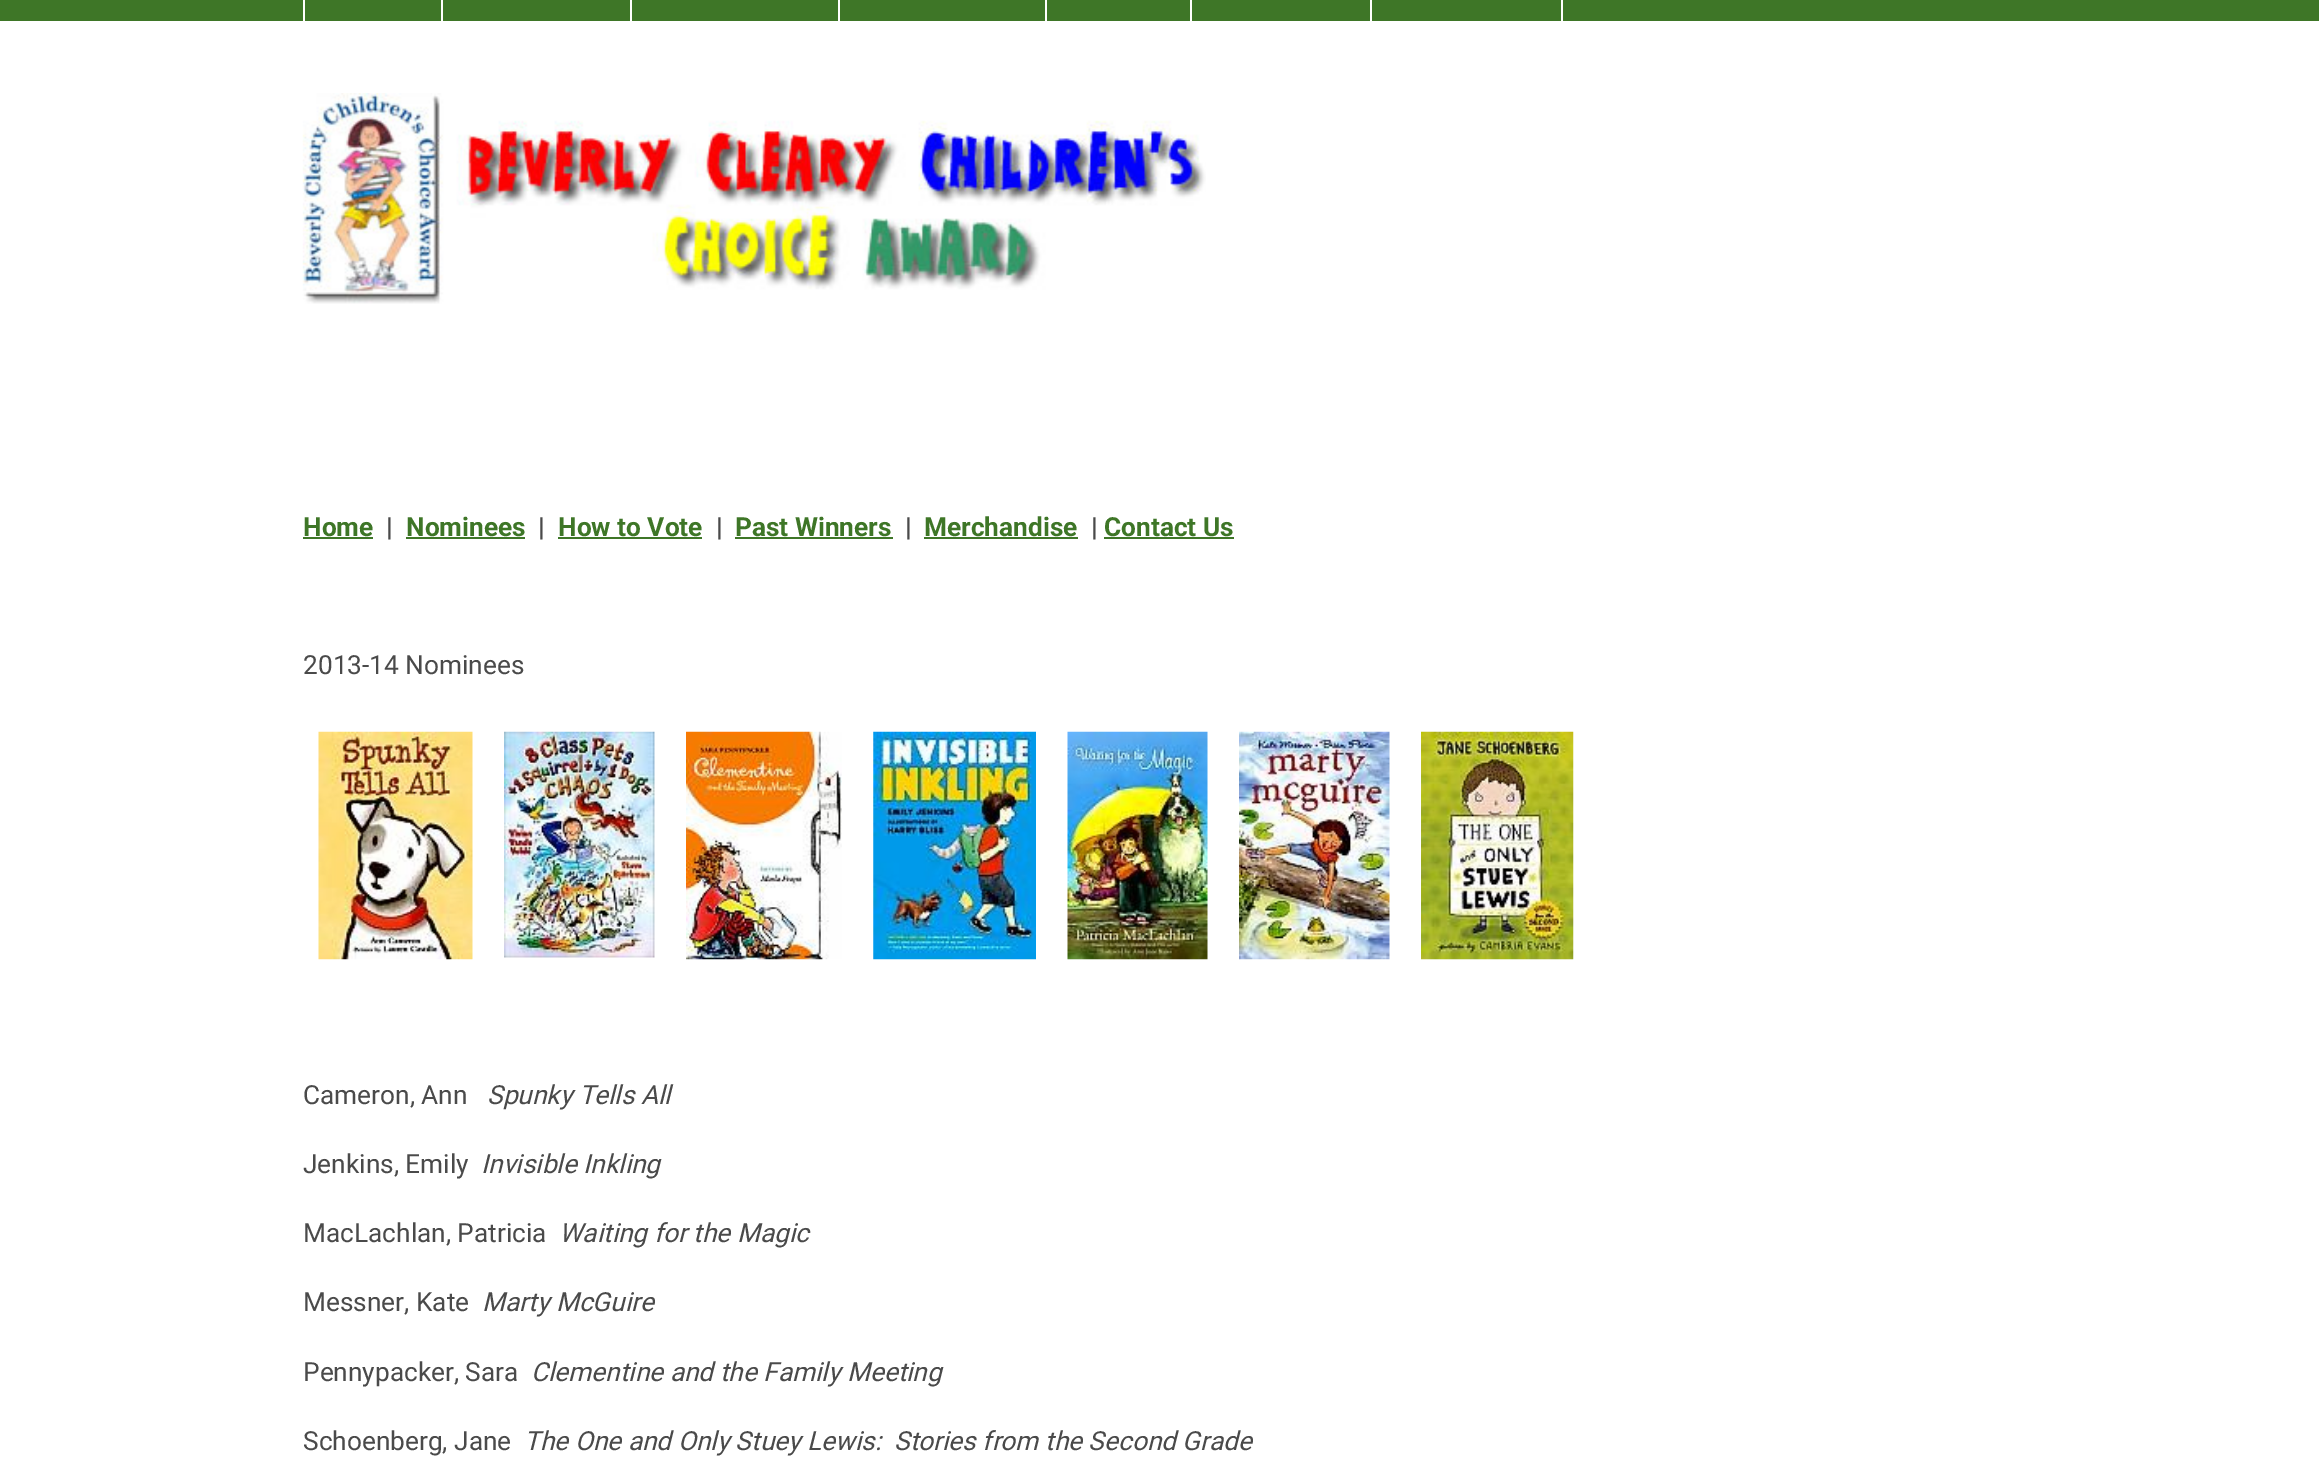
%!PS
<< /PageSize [2319 1465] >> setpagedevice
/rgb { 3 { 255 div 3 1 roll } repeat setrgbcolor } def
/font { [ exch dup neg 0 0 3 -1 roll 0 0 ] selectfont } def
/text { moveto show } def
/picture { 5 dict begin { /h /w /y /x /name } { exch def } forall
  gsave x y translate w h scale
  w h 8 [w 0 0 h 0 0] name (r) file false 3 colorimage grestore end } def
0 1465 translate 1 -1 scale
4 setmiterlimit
255 255 255 rgb
0 0 2319 1465 rectfill
62 118 39 rgb
0 0 2319 21 rectfill
255 255 255 rgb
303 0 2 21 rectfill
441 0 2 21 rectfill
630 0 2 21 rectfill
838 0 2 21 rectfill
1045 0 2 21 rectfill
1190 0 2 21 rectfill
1370 0 2 21 rectfill
1561 0 2 21 rectfill
(img_01.rgb) 302 93 904 211 picture
62 118 39 rgb
303 537 70 2 rectfill
406 537 119 2 rectfill
558 537 144 2 rectfill
735 537 158 2 rectfill
924 537 154 2 rectfill
1104 537 130 2 rectfill
(img_02.rgb) 318 731 155 229 picture
(img_03.rgb) 504 731 151 227 picture
(img_04.rgb) 686 731 156 229 picture
(img_05.rgb) 873 731 163 229 picture
(img_06.rgb) 1067 731 141 229 picture
(img_07.rgb) 1239 731 151 229 picture
(img_08.rgb) 1421 731 153 229 picture
/Roboto-Bold 26.25 font
(Home) 303 536 text
74 74 74 rgb
(|) 386 536 text
62 118 39 rgb
(Nominees) 406 536 text
74 74 74 rgb
(|) 538 536 text
62 118 39 rgb
(How to Vote) 558 536 text
74 74 74 rgb
(|) 716 536 text
62 118 39 rgb
(Past Winners) 735 536 text
74 74 74 rgb
(|) 905 536 text
62 118 39 rgb
(Merchandise) 924 536 text
74 74 74 rgb
(|) 1091 536 text
62 118 39 rgb
(Contact Us) 1104 536 text
/Roboto-Regular 26.25 font
74 74 74 rgb
(2013-14 Nominees) 303 674 text
(Cameron, Ann) 303 1104 text
/Roboto-Italic 26.25 font
(Spunky Tells All) 487 1104 text
/Roboto-Regular 26.25 font
(Jenkins, Emily) 303 1173 text
/Roboto-Italic 26.25 font
(Invisible Inkling) 481 1173 text
/Roboto-Regular 26.25 font
(MacLachlan, Patricia) 303 1242 text
/Roboto-Italic 26.25 font
(Waiting for the Magic) 559 1242 text
/Roboto-Regular 26.25 font
(Messner, Kate) 303 1311 text
/Roboto-Italic 26.25 font
(Marty McGuire) 482 1311 text
/Roboto-Regular 26.25 font
(Pennypacker, Sara) 303 1381 text
/Roboto-Italic 26.25 font
(Clementine and the Family Meeting) 531 1381 text
/Roboto-Regular 26.25 font
(Schoenberg, Jane) 303 1450 text
/Roboto-Italic 26.25 font
(The One and Only Stuey Lewis:  Stories from the Second Grade) 524 1450 text
showpage
